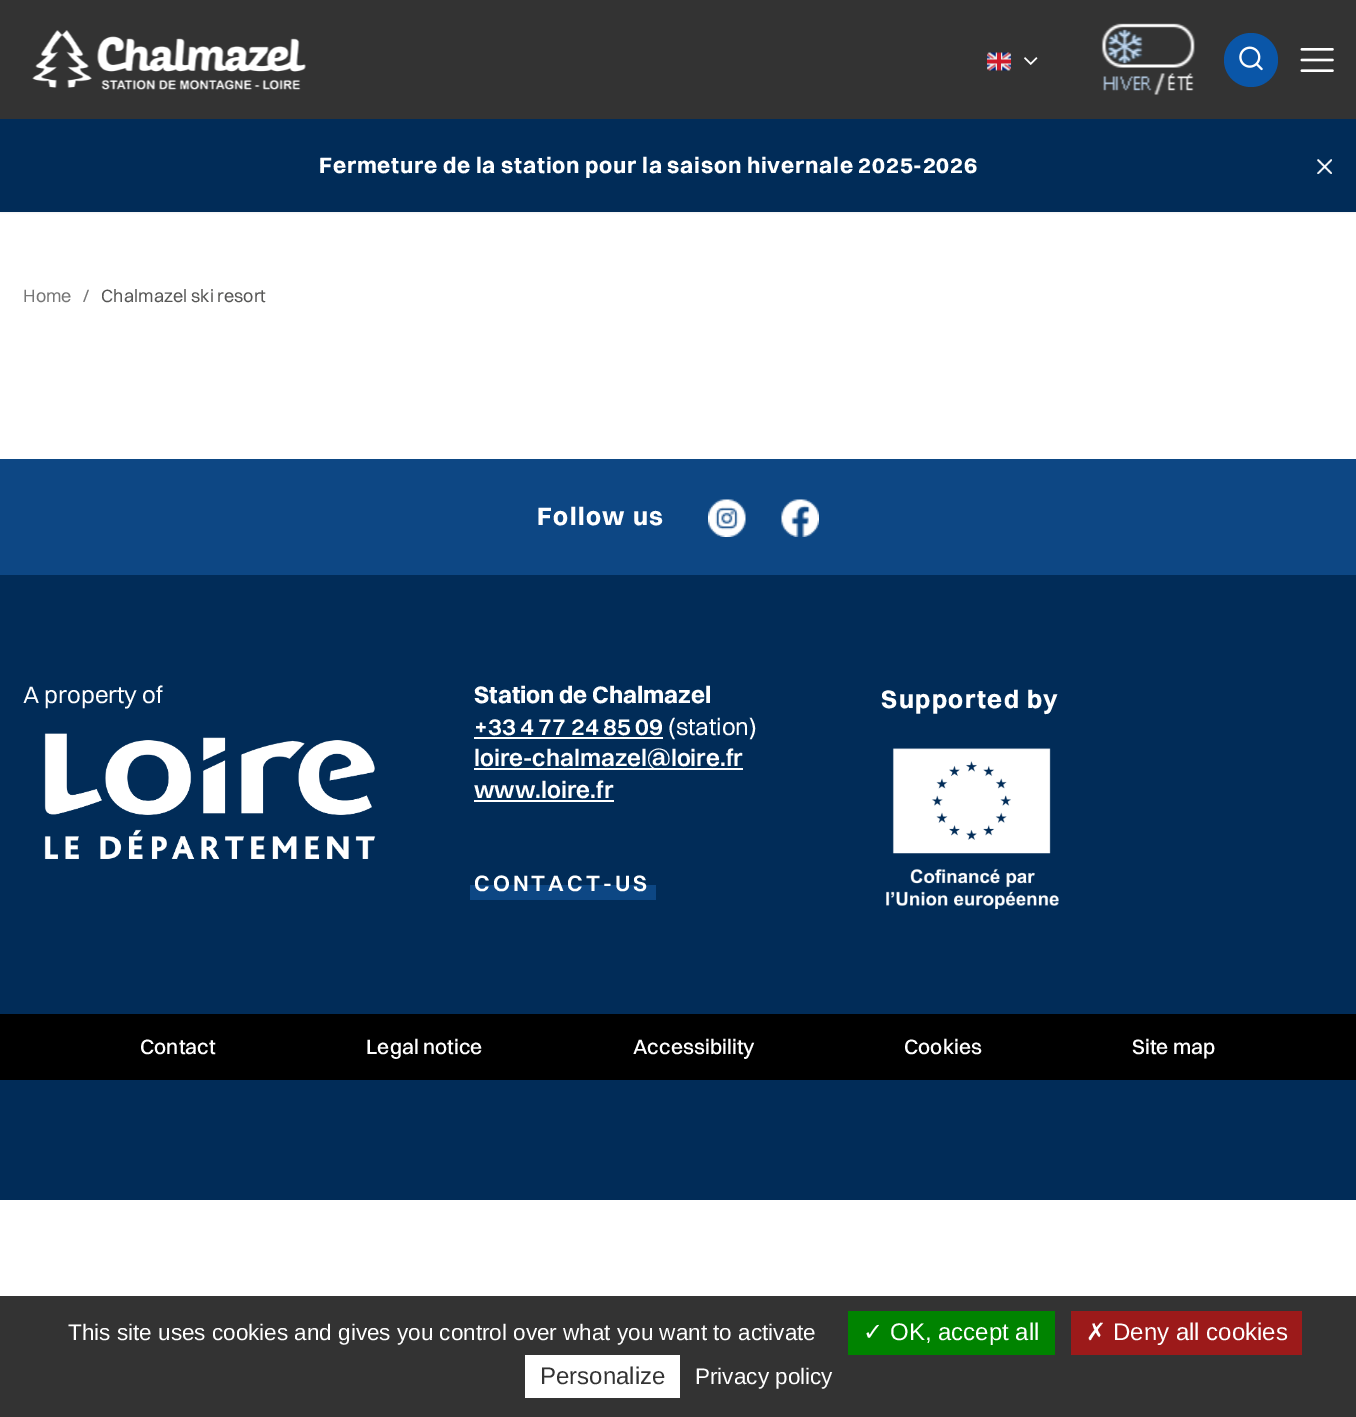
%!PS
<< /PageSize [1356 1417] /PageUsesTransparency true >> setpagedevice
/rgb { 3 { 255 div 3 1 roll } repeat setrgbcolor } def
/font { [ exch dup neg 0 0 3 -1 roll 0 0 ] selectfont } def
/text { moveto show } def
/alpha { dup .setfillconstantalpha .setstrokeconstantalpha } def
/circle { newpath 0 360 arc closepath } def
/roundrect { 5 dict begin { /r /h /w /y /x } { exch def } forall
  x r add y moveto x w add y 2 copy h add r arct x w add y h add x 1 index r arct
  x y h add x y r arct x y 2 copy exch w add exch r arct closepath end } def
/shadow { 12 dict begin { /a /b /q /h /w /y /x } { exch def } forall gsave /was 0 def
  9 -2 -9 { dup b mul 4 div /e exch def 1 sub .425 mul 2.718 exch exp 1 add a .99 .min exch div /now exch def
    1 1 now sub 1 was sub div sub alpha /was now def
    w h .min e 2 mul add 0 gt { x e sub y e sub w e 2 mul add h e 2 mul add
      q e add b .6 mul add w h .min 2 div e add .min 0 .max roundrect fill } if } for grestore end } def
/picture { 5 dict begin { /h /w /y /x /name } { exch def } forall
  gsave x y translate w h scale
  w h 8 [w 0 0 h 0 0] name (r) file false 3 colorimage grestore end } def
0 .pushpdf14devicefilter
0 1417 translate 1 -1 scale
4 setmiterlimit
255 255 255 rgb
0 0 1356 1417 rectfill
0 0 0 rgb
0 120 1356 93 0 1 0.05 shadow
51 51 51 rgb
0 0 1356 119 rectfill
(img_01.rgb) 32 30 274 60 picture
(img_02.rgb) 987 52 24 19 picture
(img_03.rgb) 1024 57 14 8 picture
(img_04.rgb) 1101 23 94 72 picture
10 86 168 rgb
1251 60 27 circle fill
(img_05.rgb) 1239 46 24 25 picture
(img_06.rgb) 1300 48 34 24 picture
1 44 88 rgb
0 119 1356 93 rectfill
(img_07.rgb) 1317 159 15 15 picture
0 575 1356 625 rectfill
13 71 132 rgb
0 459 1356 116 rectfill
(img_08.rgb) 708 499 38 38 picture
(img_09.rgb) 781 499 38 38 picture
(img_10.rgb) 44 733 332 126 picture
255 255 255 rgb
474 737 189 2 rectfill
474 768 269 2 rectfill
474 800 140 2 rectfill
13 71 132 rgb
470 885 186 15 rectfill
(img_11.rgb) 886 748 173 161 picture
0 0 0 rgb
0 1014 1356 66 rectfill
51 51 51 rgb
0 1296 1356 121 rectfill
0 131 0 rgb
848 1311 207 44 rectfill
156 26 26 rgb
1071 1311 231 44 rectfill
255 255 255 rgb
525 1355 155 43 rectfill
/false-Bold 22.5 font
319 173 moveto 0.75 0 (Fermeture de la station pour la saison hivernale 2025-2026) ashow
/false-Regular 18 font
119 119 119 rgb
(Home) 23 302 text
(/) 83 302 text
87 87 86 rgb
(Chalmazel ski resort) 101 302 text
/false-Bold 25.5 font
255 255 255 rgb
537 525 moveto 1.5 0 (Follow us) ashow
/false-Regular 24 font
(A property of) 23 703 text
/false-Bold 24 font
(Station de Chalmazel) 474 703 text
/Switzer-SemiBold 24 font
(+33 4 77 24 85 09) 474 735 text
/false-Regular 24 font
(\(station\)) 668 735 text
/Switzer-SemiBold 24 font
(loire-chalmazel@loire.fr) 474 766 text
(www.loire.fr) 474 798 text
/Switzer-SemiBold 22.5 font
474 891 moveto 3 0 (CONTACT-US) ashow
/false-Bold 25.5 font
881 708 moveto 1.5 0 (Supported by) ashow
/Switzer-Medium 21 font
(Contact) 140 1054 text
(Legal notice) 366 1054 text
(Accessibility) 633 1054 text
(Cookies) 904 1054 text
(Site map) 1132 1054 text
/LiberationSans-Regular 22.5 font
(This site uses cookies and gives you control over what you want to activate) 68 1340 text
/DejaVuSans-Regular 24 font
(✓) 863 1340 text
/LiberationSans-Regular 24 font
(OK, accept all) 890 1340 text
/DejaVuSans-Regular 24 font
(✗) 1086 1340 text
/LiberationSans-Regular 24 font
(Deny all cookies) 1113 1340 text
51 51 51 rgb
(Personalize) 540 1384 text
/LiberationSans-Regular 22.5 font
255 255 255 rgb
(Privacy policy) 695 1384 text
.poppdf14devicefilter showpage
